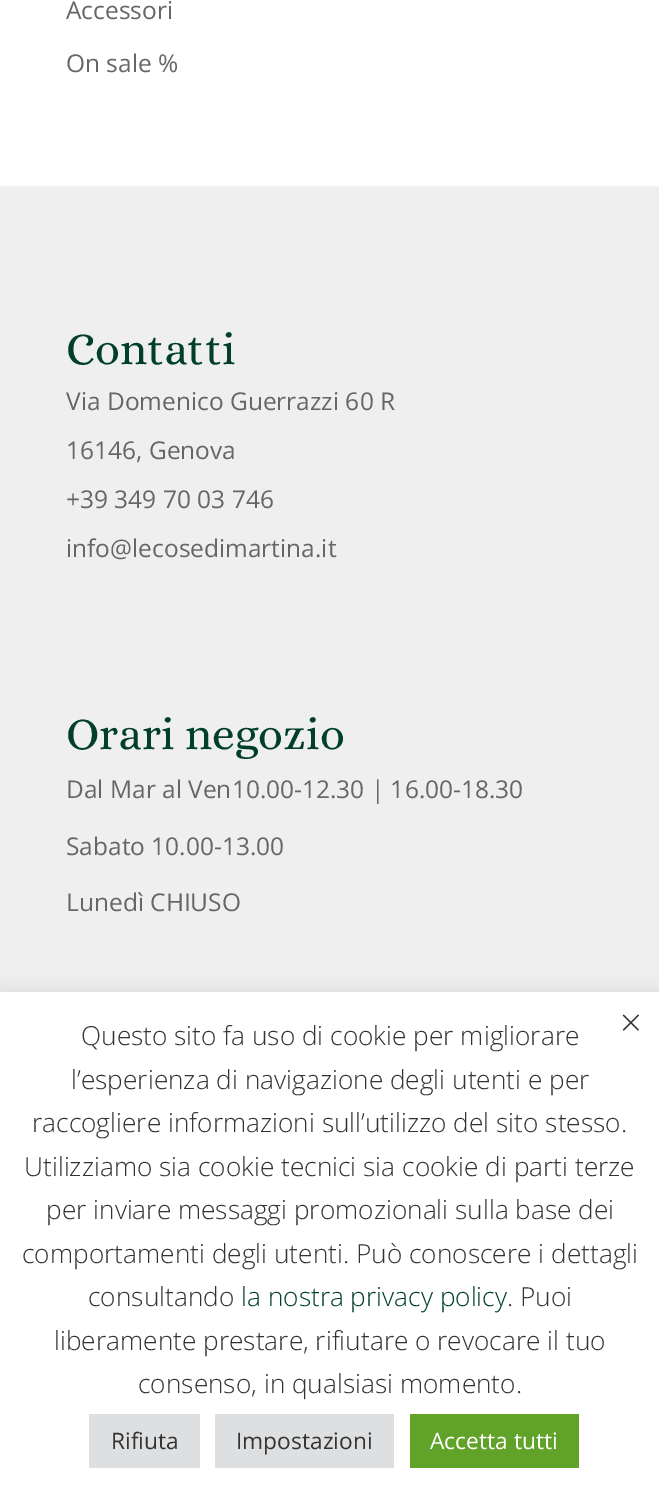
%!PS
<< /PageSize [659 1488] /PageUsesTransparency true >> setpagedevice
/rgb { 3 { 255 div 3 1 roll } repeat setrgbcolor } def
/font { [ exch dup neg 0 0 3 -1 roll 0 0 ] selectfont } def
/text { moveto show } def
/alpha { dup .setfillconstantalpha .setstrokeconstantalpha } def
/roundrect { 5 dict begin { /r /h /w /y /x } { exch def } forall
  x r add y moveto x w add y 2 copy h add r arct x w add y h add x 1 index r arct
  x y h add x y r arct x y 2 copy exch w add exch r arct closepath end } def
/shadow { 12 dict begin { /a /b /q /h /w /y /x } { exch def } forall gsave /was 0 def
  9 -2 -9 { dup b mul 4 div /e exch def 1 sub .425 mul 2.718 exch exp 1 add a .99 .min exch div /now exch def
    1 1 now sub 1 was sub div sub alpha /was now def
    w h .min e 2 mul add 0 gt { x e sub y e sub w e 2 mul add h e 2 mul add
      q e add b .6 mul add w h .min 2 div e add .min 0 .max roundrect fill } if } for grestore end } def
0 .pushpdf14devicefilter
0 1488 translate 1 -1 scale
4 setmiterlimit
255 255 255 rgb
0 0 659 1488 rectfill
239 239 239 rgb
0 186 659 806 rectfill
172 171 171 rgb
0 991 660 497 0 9 0.3 shadow
255 255 255 rgb
0 992 659 496 rectfill
222 223 224 rgb
89 1414 111 54 rectfill
215 1414 179 54 rectfill
97 162 41 rgb
410 1414 169 54 rectfill
/OpenSans-Regular 24.5 font
102 102 102 rgb
(Accessori) 66 19 text
(On sale %) 66 72 text
/Alice-Regular 45.5 font
1 63 40 rgb
(Contatti) 66 364 text
/OpenSans-Regular 24.5 font
102 102 102 rgb
(Via Domenico Guerrazzi 60 R) 66 410 text
(16146, Genova) 66 459 text
(+39 349 70 03 746) 66 508 text
(info@lecosedimartina.it) 66 557 text
/Alice-Regular 45.5 font
1 63 40 rgb
(Orari negozio) 66 749 text
/OpenSans-Regular 24.5 font
102 102 102 rgb
(Dal Mar al Ven10.00-12.30 | 16.00-18.30) 66 798 text
(Sabato 10.00-13.00) 66 855 text
(Lunedì CHIUSO) 66 911 text
/OpenSans-Light 26.25 font
51 51 51 rgb
(Questo sito fa uso di cookie per migliorare) 81 1045 text
/OpenSans-Light 38 font
(×) 620 1036 text
/OpenSans-Light 26.25 font
(l’esperienza di navigazione degli utenti e per) 71 1089 text
(raccogliere informazioni sull’utilizzo del sito stesso.) 32 1132 text
(Utilizziamo sia cookie tecnici sia cookie di parti terze) 24 1176 text
(per inviare messaggi promozionali sulla base dei) 46 1219 text
(comportamenti degli utenti. Può conoscere i dettagli) 22 1263 text
(consultando) 88 1306 text
1 63 40 rgb
(la nostra privacy policy) 241 1306 text
51 51 51 rgb
(. Puoi) 507 1306 text
(liberamente prestare, rifiutare o revocare il tuo) 54 1350 text
(consenso, in qualsiasi momento.) 138 1393 text
/OpenSans-Regular 22.75 font
(Rifiuta) 111 1449 text
(Impostazioni) 236 1449 text
255 255 255 rgb
(Accetta tutti) 430 1449 text
.poppdf14devicefilter showpage
